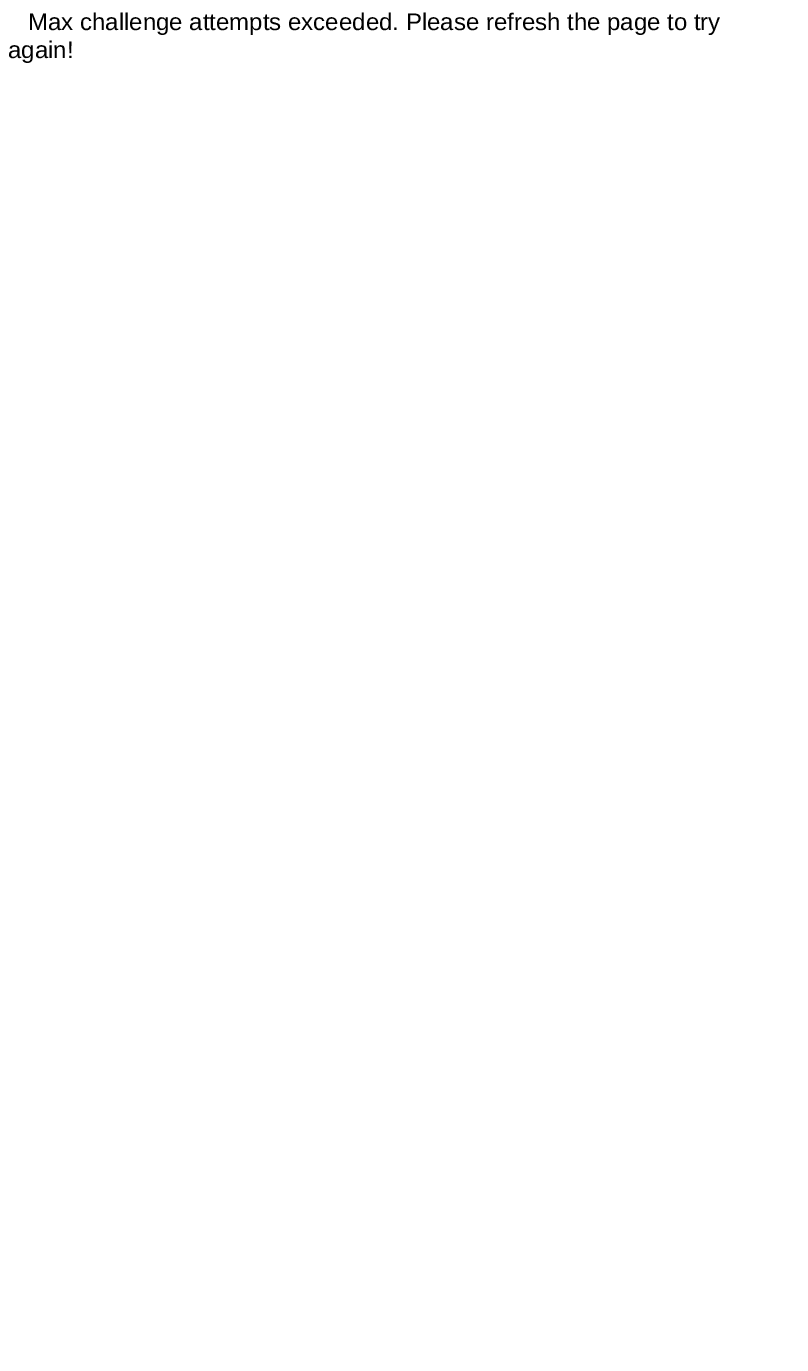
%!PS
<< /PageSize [808 1371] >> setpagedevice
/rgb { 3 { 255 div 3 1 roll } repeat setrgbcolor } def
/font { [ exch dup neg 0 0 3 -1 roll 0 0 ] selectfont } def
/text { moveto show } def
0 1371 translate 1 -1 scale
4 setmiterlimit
255 255 255 rgb
0 0 808 1371 rectfill
/LiberationSans-Regular 24 font
0 0 0 rgb
(Max challenge attempts exceeded. Please refresh the page to try) 28 30 text
(again!) 8 58 text
showpage
